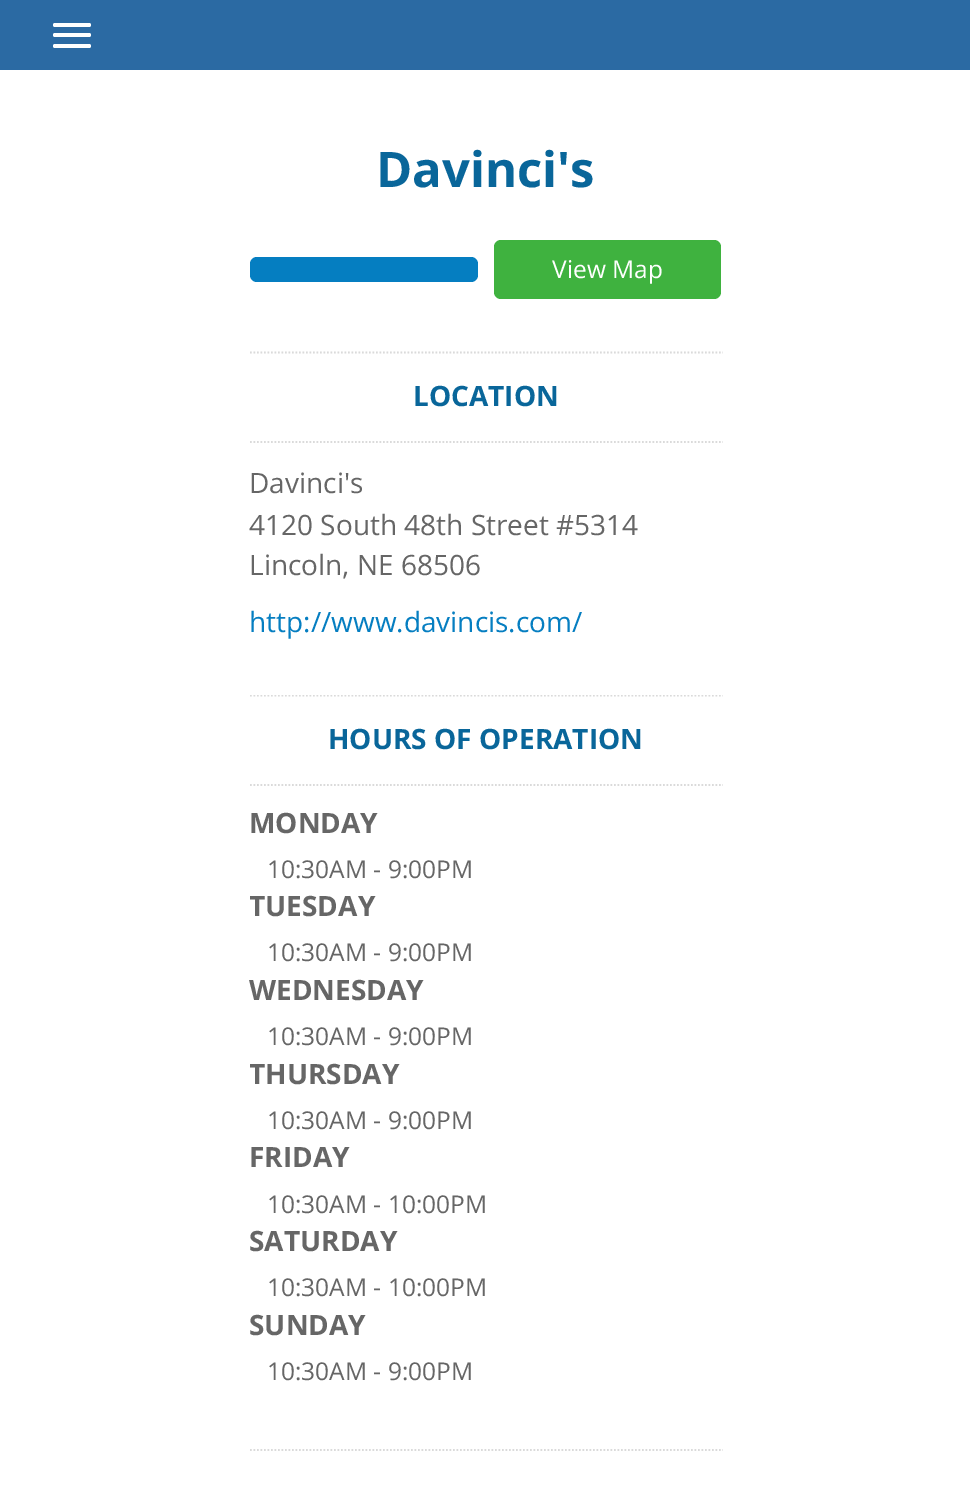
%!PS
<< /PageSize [970 1488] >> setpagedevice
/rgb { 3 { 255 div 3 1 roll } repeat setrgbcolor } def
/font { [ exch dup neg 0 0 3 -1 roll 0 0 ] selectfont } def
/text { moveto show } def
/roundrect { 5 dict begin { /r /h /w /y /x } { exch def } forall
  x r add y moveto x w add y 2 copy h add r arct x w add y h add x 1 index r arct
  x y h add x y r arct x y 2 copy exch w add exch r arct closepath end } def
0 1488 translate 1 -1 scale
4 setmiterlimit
255 255 255 rgb
0 0 970 1488 rectfill
43 106 163 rgb
0 0 970 70 rectfill
255 255 255 rgb
53 23 38 4 2 roundrect fill
53 33 38 4 2 roundrect fill
53 44 38 4 2 roundrect fill
5 126 193 rgb
250 257 228 25 7 roundrect fill
63 178 63 rgb
494 240 227 59 7 roundrect fill
218 218 218 rgb
1.8 setlinewidth
[1.75 1.75] 0 setdash
250 352.5 moveto 473 0 rlineto stroke
250 442 moveto 473 0 rlineto stroke
gsave
250 695 473 702 rectclip
250 695.5 moveto 473 0 rlineto stroke
grestore
250 785 moveto 473 0 rlineto stroke
250 1450 moveto 473 0 rlineto stroke
/OpenSans-Bold 49 font
9 102 154 rgb
(Davinci's) 376 187 text
/OpenSans-Regular 24.5 font
255 255 255 rgb
(View Map) 552 278 text
/OpenSans-Bold 28 font
9 102 154 rgb
(LOCATION) 413 406 text
/OpenSans-Regular 28 font
102 102 102 rgb
(Davinci's) 249 493 text
(4120 South 48th Street #5314) 249 535 text
(Lincoln, NE 68506) 249 575 text
5 126 193 rgb
(http://www.davincis.com/) 249 632 text
/OpenSans-Bold 28 font
9 102 154 rgb
(HOURS OF OPERATION) 328 749 text
102 102 102 rgb
(MONDAY) 249 833 text
/OpenSans-Regular 24.5 font
(10:30AM - 9:00PM) 267 878 text
gsave
250 695 473 702 rectclip
/OpenSans-Bold 28 font
(TUESDAY) 249 916 text
grestore
(10:30AM - 9:00PM) 267 961 text
/OpenSans-Bold 28 font
(WEDNESDAY) 249 1000 text
/OpenSans-Regular 24.5 font
(10:30AM - 9:00PM) 267 1045 text
gsave
250 695 473 702 rectclip
/OpenSans-Bold 28 font
(THURSDAY) 249 1084 text
grestore
(10:30AM - 9:00PM) 267 1129 text
/OpenSans-Bold 28 font
(FRIDAY) 249 1167 text
/OpenSans-Regular 24.5 font
(10:30AM - 10:00PM) 267 1213 text
/OpenSans-Bold 28 font
(SATURDAY) 249 1251 text
/OpenSans-Regular 24.5 font
(10:30AM - 10:00PM) 267 1296 text
/OpenSans-Bold 28 font
(SUNDAY) 249 1335 text
/OpenSans-Regular 24.5 font
(10:30AM - 9:00PM) 267 1380 text
showpage
